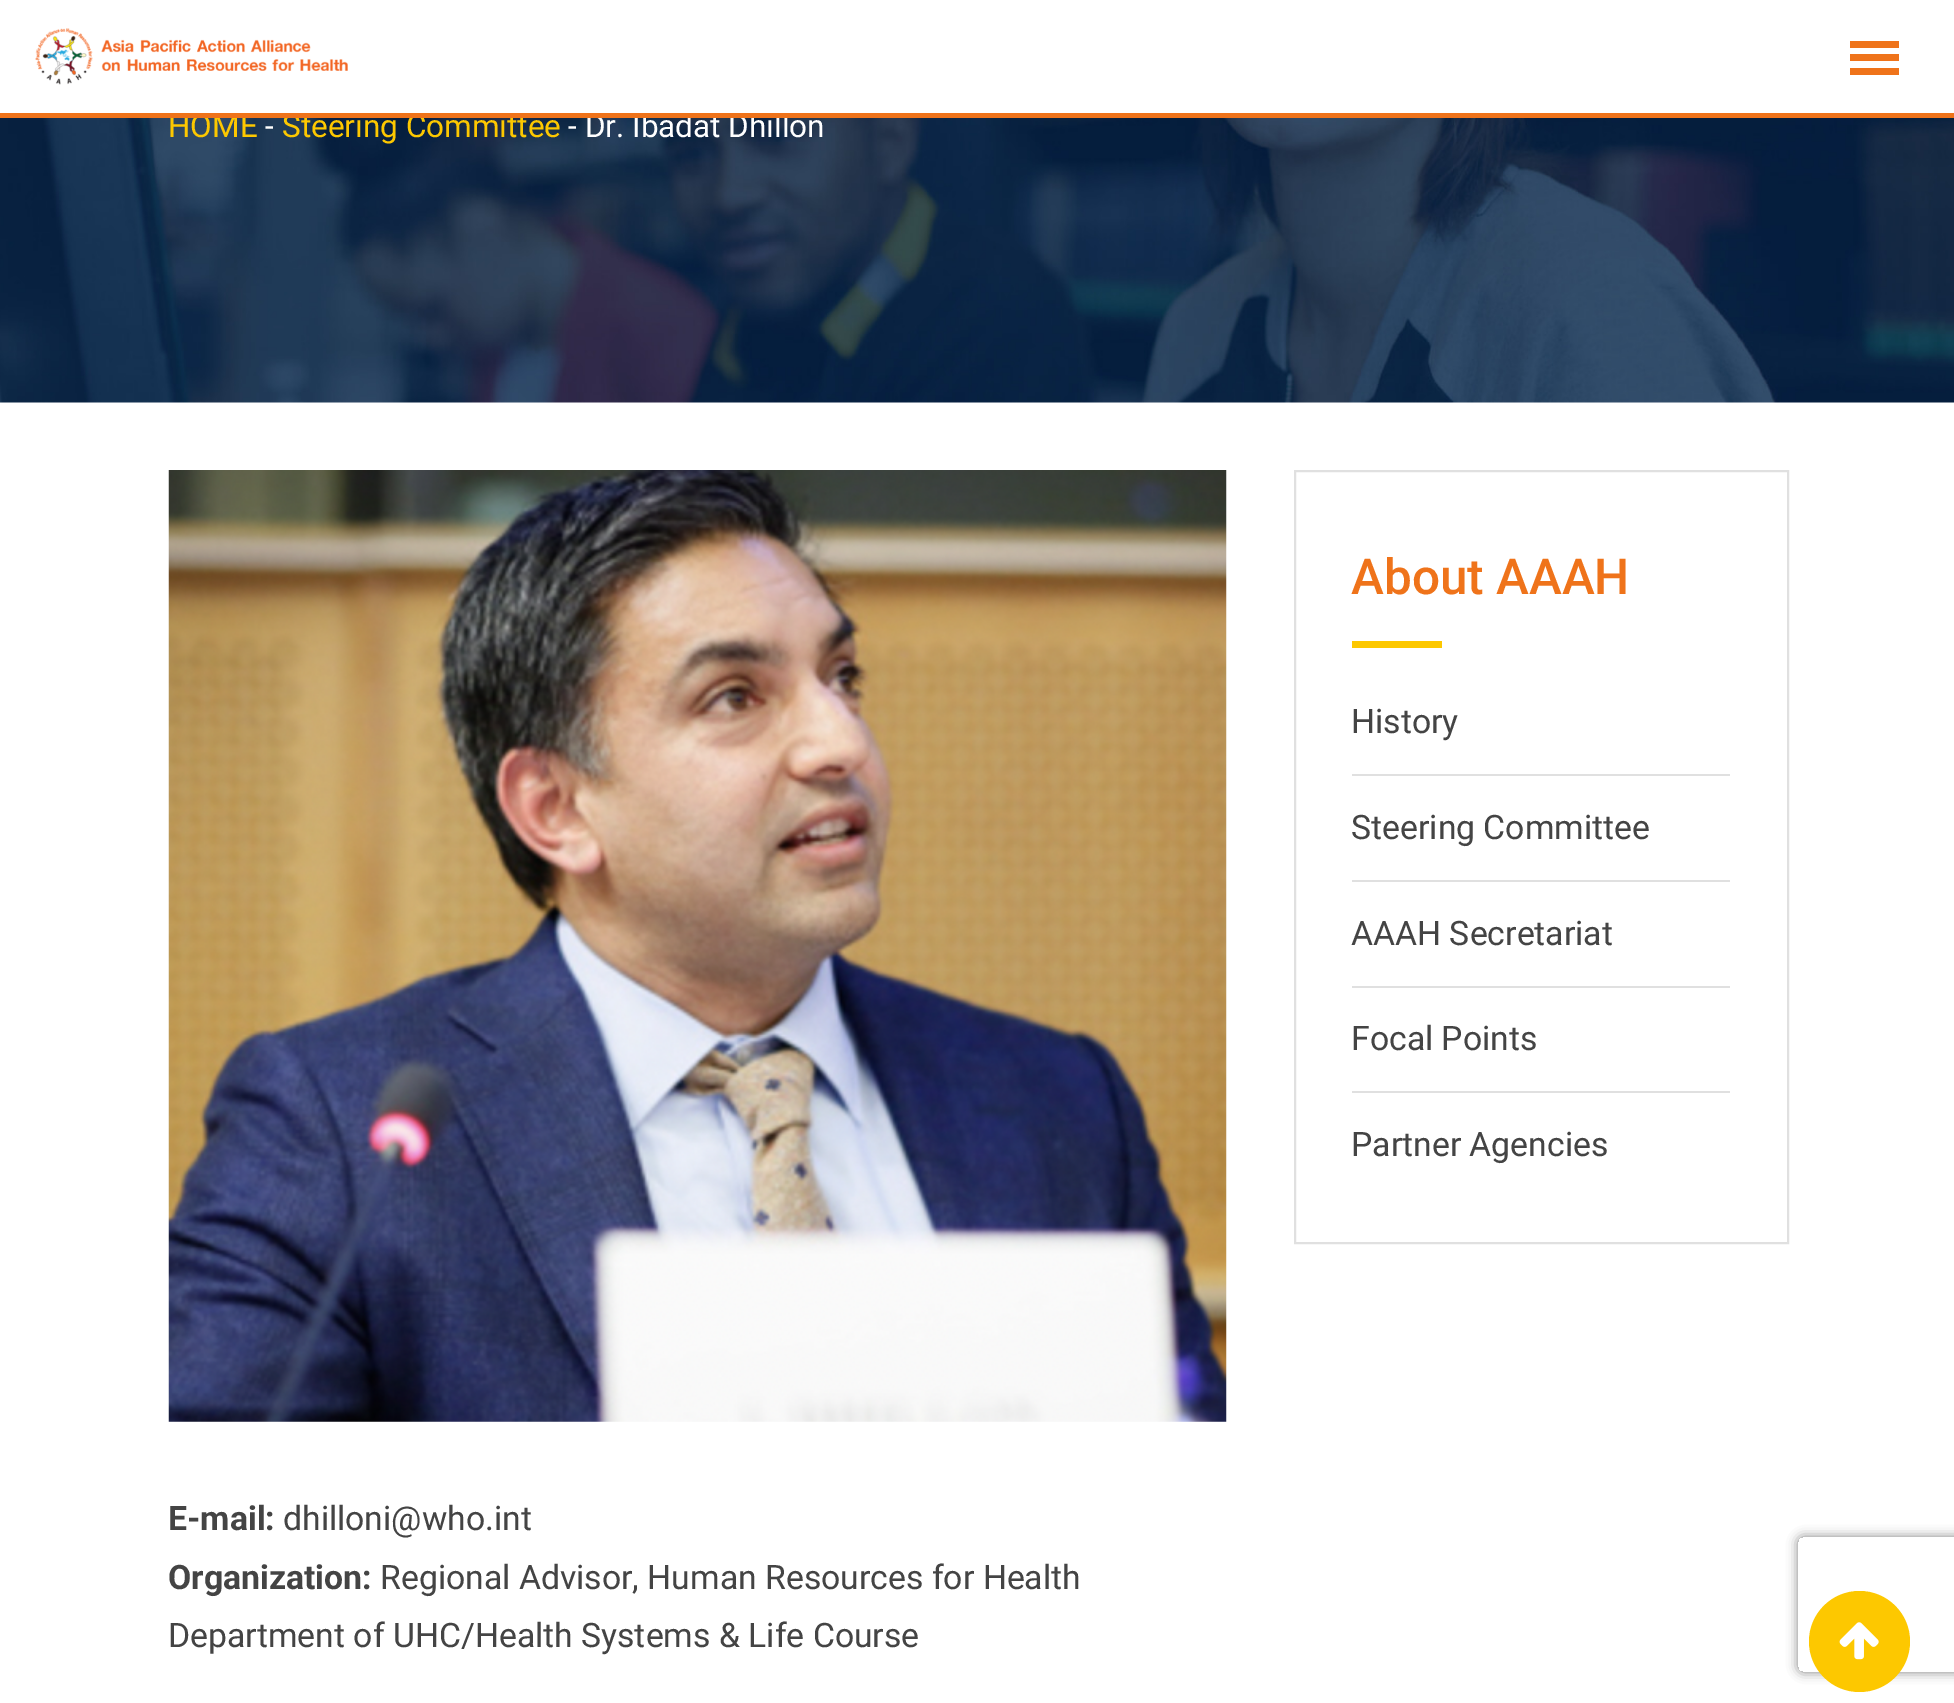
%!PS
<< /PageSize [1954 1703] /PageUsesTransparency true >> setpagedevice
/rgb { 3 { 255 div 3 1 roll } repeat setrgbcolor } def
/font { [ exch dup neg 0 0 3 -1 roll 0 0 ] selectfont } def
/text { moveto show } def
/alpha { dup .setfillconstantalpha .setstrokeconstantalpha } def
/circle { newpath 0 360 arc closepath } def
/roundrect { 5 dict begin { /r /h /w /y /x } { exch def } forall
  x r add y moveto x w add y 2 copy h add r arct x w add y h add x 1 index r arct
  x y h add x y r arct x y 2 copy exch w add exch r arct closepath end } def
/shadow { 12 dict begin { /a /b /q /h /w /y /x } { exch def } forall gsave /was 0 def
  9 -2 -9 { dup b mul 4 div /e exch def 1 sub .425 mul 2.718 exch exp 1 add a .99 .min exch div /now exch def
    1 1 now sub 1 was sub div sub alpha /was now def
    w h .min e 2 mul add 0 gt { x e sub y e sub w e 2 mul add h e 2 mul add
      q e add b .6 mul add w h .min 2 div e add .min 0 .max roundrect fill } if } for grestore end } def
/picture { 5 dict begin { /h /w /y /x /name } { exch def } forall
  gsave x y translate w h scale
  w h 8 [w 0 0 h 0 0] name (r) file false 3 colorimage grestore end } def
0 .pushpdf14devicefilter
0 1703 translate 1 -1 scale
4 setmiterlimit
255 255 255 rgb
0 0 1954 1703 rectfill
(img_01.rgb) 35 28 313 57 picture
239 115 26 rgb
1850 41 49 7 rectfill
1850 54 49 7 rectfill
1850 68 49 7 rectfill
(img_02.rgb) 0 118 1954 285 picture
224 224 224 rgb
2 setlinewidth
1295 471 493 772 rectstroke
253 200 0 rgb
1352 641 90 7 rectfill
224 224 224 rgb
1352 774 378 2 rectfill
1352 880 378 2 rectfill
1352 986 378 2 rectfill
1352 1091 378 2 rectfill
(img_03.rgb) 168 470 1059 952 picture
gsave
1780 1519 moveto 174 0 rlineto 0 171 rlineto -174 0 rlineto closepath 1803 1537 moveto 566 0 rlineto 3 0 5 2 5 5 rcurveto 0 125 rlineto 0 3 -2 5 -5 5 rcurveto -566 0 rlineto -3 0 -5 -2 -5 -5 rcurveto 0 -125 rlineto 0 -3 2 -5 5 -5 rcurveto closepath eoclip newpath
128 128 128 rgb
1798 1537 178 135 5 5.5 1 shadow
grestore
253 200 0 rgb
1859.5 1641.5 50.5 circle fill
(img_04.rgb) 1839 1622 40 38 picture
/Roboto-Regular 31.5 font
(HOME) 168 137 text
255 255 255 rgb
(-) 265 137 text
253 200 0 rgb
(Steering Committee) 282 137 text
255 255 255 rgb
(- Dr. Ibadat Dhillon) 568 137 text
239 115 26 rgb
0 113 1954 5 rectfill
/Roboto-Medium 49.5 font
(About AAAH) 1351 594 text
/Roboto-Regular 33.75 font
68 68 68 rgb
(History) 1351 733 text
(Steering Committee) 1351 839 text
(AAAH Secretariat) 1351 945 text
(Focal Points) 1351 1050 text
(Partner Agencies) 1351 1156 text
/Roboto-Bold 33.75 font
(E-mail:) 168 1530 text
/Roboto-Regular 33.75 font
(dhilloni@who.int) 283 1530 text
/Roboto-Bold 33.75 font
(Organization:) 168 1589 text
/Roboto-Regular 33.75 font
(Regional Advisor, Human Resources for Health) 380 1589 text
(Department of UHC/Health Systems & Life Course) 168 1647 text
.poppdf14devicefilter showpage
